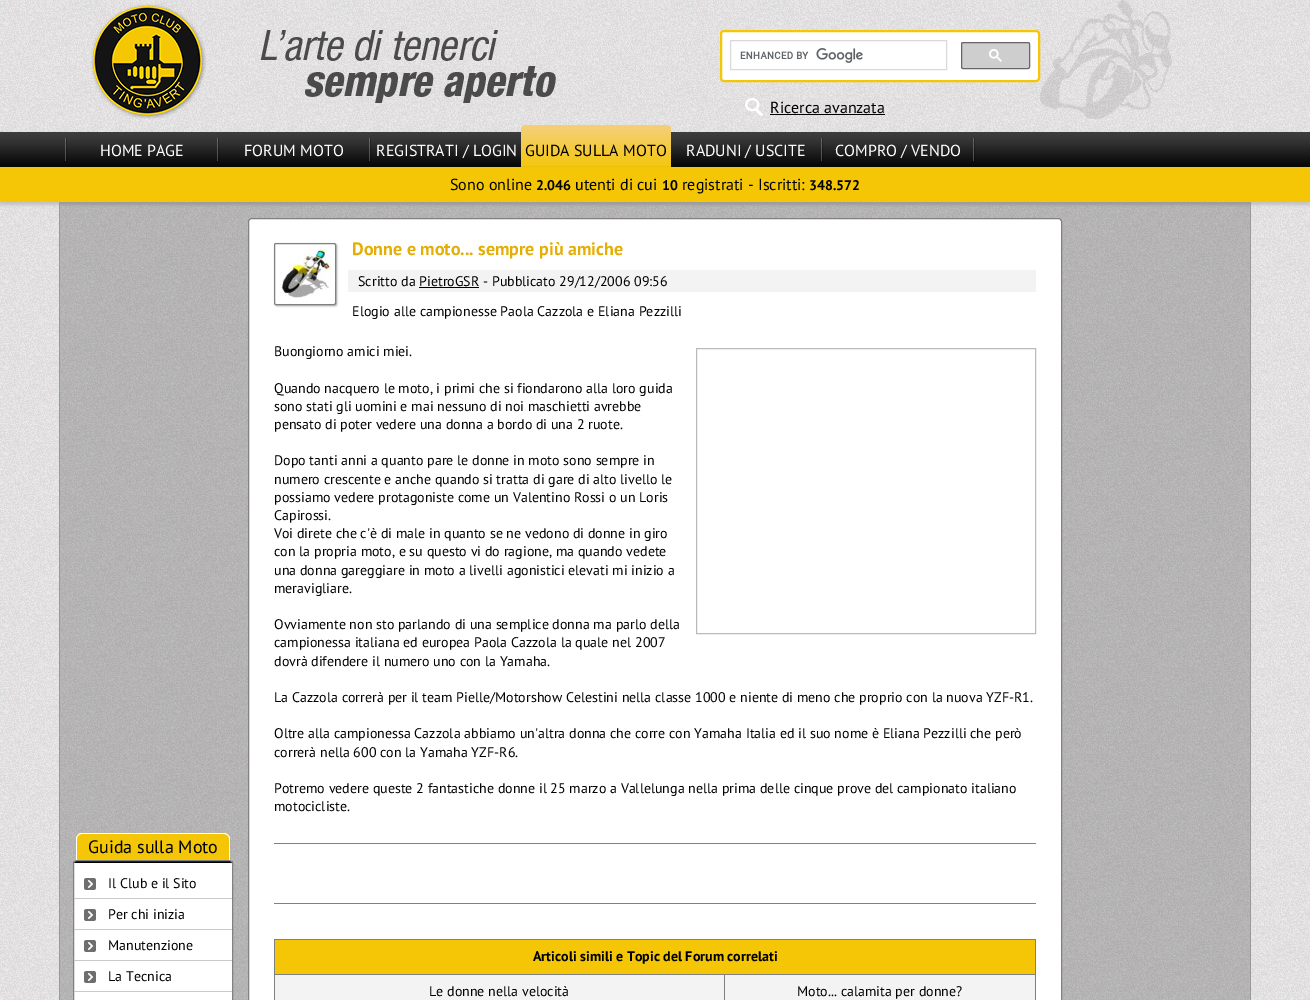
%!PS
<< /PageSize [1310 1000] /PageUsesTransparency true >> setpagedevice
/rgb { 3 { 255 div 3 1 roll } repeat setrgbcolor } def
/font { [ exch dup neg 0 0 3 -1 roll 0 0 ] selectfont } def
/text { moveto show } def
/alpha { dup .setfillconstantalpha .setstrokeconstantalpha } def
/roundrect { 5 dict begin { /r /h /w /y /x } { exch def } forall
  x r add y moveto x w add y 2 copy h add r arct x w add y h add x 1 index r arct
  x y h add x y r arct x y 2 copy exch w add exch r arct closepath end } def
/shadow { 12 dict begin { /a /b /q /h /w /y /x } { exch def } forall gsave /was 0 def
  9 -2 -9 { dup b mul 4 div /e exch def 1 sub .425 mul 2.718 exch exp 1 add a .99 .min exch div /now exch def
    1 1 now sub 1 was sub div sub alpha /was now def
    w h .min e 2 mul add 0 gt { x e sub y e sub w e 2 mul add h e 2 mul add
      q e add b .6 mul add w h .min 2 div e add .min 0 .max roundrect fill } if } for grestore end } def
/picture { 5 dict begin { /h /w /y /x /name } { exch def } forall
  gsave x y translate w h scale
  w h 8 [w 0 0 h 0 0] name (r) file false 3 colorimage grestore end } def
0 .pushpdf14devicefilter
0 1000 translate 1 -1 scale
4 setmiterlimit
255 255 255 rgb
0 0 1310 1000 rectfill
(img_01.rgb) 0 0 1310 1000 picture
(img_02.rgb) 260 30 296 73 picture
(img_03.rgb) 91 4 115 115 picture
721 31 318 50 3 roundrect gsave fill grestore
244 198 5 rgb
2 setlinewidth
stroke
217 217 217 rgb
1 setlinewidth
730.5 40.5 216 29 rectstroke
(img_04.rgb) 740 48 123 15 picture
206 206 206 rgb
961.5 42.5 68 26 1.5 roundrect gsave fill grestore
102 102 102 rgb
stroke
(img_05.rgb) 989 49 13 13 picture
(img_06.rgb) 745 98 18 18 picture
0 0 0 rgb
770 114 115 1 rectfill
(img_07.rgb) 0 132 1310 35 picture
(img_08.rgb) 65 138 2 23 picture
(img_08.rgb) 217 138 2 23 picture
(img_08.rgb) 369 138 2 23 picture
194 194 194 rgb
0 170 1310 35 0 1.5 1 shadow
(img_09.rgb) 521 125 150 42 picture
(img_08.rgb) 821 138 2 23 picture
(img_08.rgb) 973 138 2 23 picture
244 198 5 rgb
0 167 1310 35 rectfill
0.2 alpha
0 0 0 rgb
60 202 1190 798 rectfill
1 alpha
153 153 153 rgb
1250 202 1 798 rectfill
59 202 1 798 rectfill
244 198 5 rgb
82 833 moveto 142 0 rlineto 3.5 0 6 2.5 6 6 rcurveto 0 21 rlineto -154 0 rlineto 0 -21 rlineto 0 -3.5 2.5 -6 6 -6 rcurveto closepath fill
255 255 255 rgb
82 833 moveto 142 0 rlineto 3 0 6 3 6 6 rcurveto 0 21 rlineto -154 0 rlineto 0 -21 rlineto 0 -3 3 -6 6 -6 rcurveto closepath 82 834 moveto 142 0 rlineto 3 0 5 2 5 5 rcurveto 0 21 rlineto -152 0 rlineto 0 -21 rlineto 0 -3 2 -5 5 -5 rcurveto closepath eofill
73 860 160 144 4 roundrect fill
(img_10.rgb) 73 861 160 2 picture
130 129 129 rgb
73.5 860.5 159 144 3.5 roundrect stroke
(img_11.rgb) 84 878 12 12 picture
202 202 202 rgb
74 898 158 1 rectfill
(img_11.rgb) 84 909 12 12 picture
74 929 158 1 rectfill
(img_11.rgb) 84 940 12 12 picture
74 960 158 1 rectfill
(img_11.rgb) 84 971 12 12 picture
74 991 158 1 rectfill
255 255 255 rgb
248.5 218.5 813 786 3.5 roundrect gsave fill grestore
130 129 129 rgb
stroke
168 168 168 rgb
275 244 62 62 2 1 1 shadow
255 255 255 rgb
274.5 243.5 61 61 1.5 roundrect gsave fill grestore
130 129 129 rgb
stroke
(img_12.rgb) 279 249 52 49 picture
243 243 243 rgb
348 270 688 22 rectfill
0 0 0 rgb
419 287 60 1 rectfill
187 187 187 rgb
696.5 348.5 339 285 rectstroke
130 129 129 rgb
274 843 762 1 rectfill
274 903 762 1 rectfill
243 243 243 rgb
275 975 760 25 rectfill
244 198 5 rgb
275 940 760 34 rectfill
128 128 128 rgb
274 939 762 1 rectfill
724 974 312 1 rectfill
1035 974 1 26 rectfill
1035 939 1 36 rectfill
724 974 1 26 rectfill
274 974 451 1 rectfill
274 974 1 26 rectfill
274 939 1 36 rectfill
/PTSans-Regular 16 font
0 0 0 rgb
(Ricerca avanzata) 770 113 text
254 254 254 rgb
(HOME PAGE) 100 156 text
(FORUM MOTO) 244 156 text
(REGISTRATI / LOGIN) 376 156 text
0 0 0 rgb
(GUIDA SULLA MOTO) 525 156 text
254 254 254 rgb
(RADUNI / USCITE) 686 156 text
(COMPRO / VENDO) 835 156 text
0 0 0 rgb
(Sono online) 450 190 text
/PTSans-Bold 14 font
(2.046) 536 190 text
/PTSans-Regular 16 font
(utenti di cui) 575 190 text
/PTSans-Bold 14 font
(10) 662 190 text
/PTSans-Regular 16 font
(registrati - Iscritti:) 682 190 text
/PTSans-Bold 14 font
(348.572) 809 190 text
/PTSans-Regular 18 font
(Guida sulla Moto) 88 853 text
/PTSans-Regular 14 font
(Il Club e il Sito) 108 888 text
(Per chi inizia) 108 919 text
(Manutenzione) 108 950 text
(La Tecnica) 108 981 text
/PTSans-Bold 18 font
229 174 5 rgb
(Donne e moto... sempre più amiche) 352 255 text
/PTSans-Regular 14 font
0 0 0 rgb
(Scritto da PietroGSR - Pubblicato 29/12/2006 09:56) 358 286 text
(Elogio alle campionesse Paola Cazzola e Eliana Pezzilli) 352 316 text
(Buongiorno amici miei.) 274 356 text
(Quando nacquero le moto, i primi che si fiondarono alla loro guida) 274 393 text
(sono stati gli uomini e mai nessuno di noi maschietti avrebbe) 274 411 text
(pensato di poter vedere una donna a bordo di una 2 ruote.) 274 429 text
(Dopo tanti anni a quanto pare le donne in moto sono sempre in) 274 465 text
(numero crescente e anche quando si tratta di gare di alto livello le) 274 484 text
(possiamo vedere protagoniste come un Valentino Rossi o un Loris) 274 502 text
(Capirossi.) 274 520 text
(Voi direte che c'è di male in quanto se ne vedono di donne in giro) 274 538 text
(con la propria moto, e su questo vi do ragione, ma quando vedete) 274 556 text
(una donna gareggiare in moto a livelli agonistici elevati mi inizio a) 274 575 text
(meravigliare.) 274 593 text
(Ovviamente non sto parlando di una semplice donna ma parlo della) 274 629 text
(campionessa italiana ed europea Paola Cazzola la quale nel 2007) 274 647 text
(dovrà difendere il numero uno con la Yamaha.) 274 666 text
(La Cazzola correrà per il team Pielle/Motorshow Celestini nella classe 1000 e niente di meno che proprio con la nuova YZF-R1.) 274 702 text
(Oltre alla campionessa Cazzola abbiamo un'altra donna che corre con Yamaha Italia ed il suo nome è Eliana Pezzilli che però) 274 738 text
(correrà nella 600 con la Yamaha YZF-R6.) 274 757 text
(Potremo vedere queste 2 fantastiche donne il 25 marzo a Vallelunga nella prima delle cinque prove del campionato italiano) 274 793 text
(motocicliste.) 274 811 text
/PTSans-Bold 14 font
(Articoli simili e Topic del Forum correlati) 533 961 text
/PTSans-Regular 14 font
(Le donne nella velocità) 429 996 text
(Moto... calamita per donne?) 797 996 text
.poppdf14devicefilter showpage
